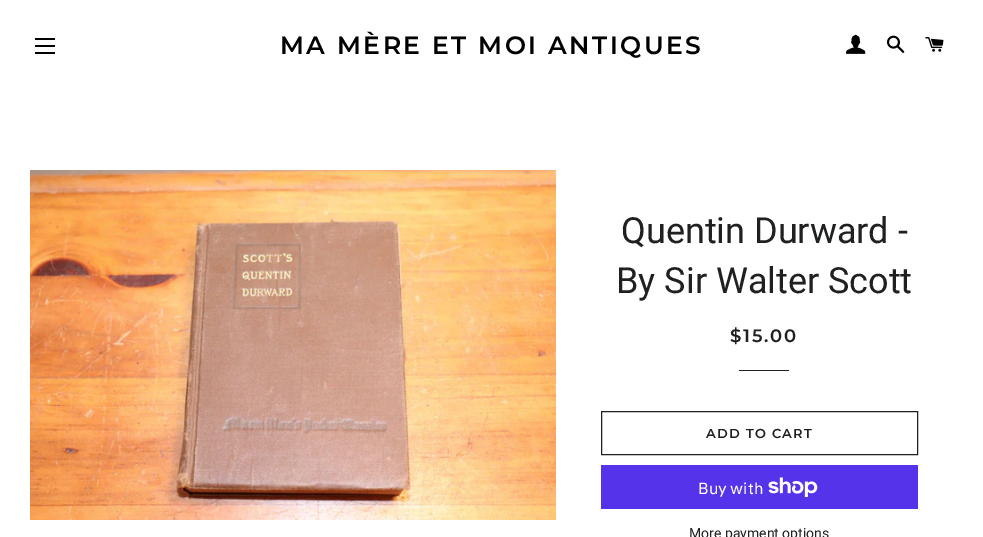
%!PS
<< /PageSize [983 537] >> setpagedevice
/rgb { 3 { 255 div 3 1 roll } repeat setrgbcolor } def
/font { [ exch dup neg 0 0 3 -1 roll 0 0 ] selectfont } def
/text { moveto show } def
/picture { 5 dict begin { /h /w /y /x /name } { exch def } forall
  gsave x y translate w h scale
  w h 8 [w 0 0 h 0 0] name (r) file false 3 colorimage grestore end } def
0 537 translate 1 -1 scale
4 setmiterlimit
255 255 255 rgb
0 0 983 537 rectfill
0 0 0 rgb
35 38 20 2 rectfill
35 45 20 2 rectfill
35 52 20 2 rectfill
(img_01.rgb) 846 34 20 20 picture
(img_02.rgb) 887 35 18 18 picture
(img_03.rgb) 925 37 19 15 picture
(img_04.rgb) 30 170 526 350 picture
31 32 33 rgb
739 370 50 1 rectfill
601.5 411.5 316 43 rectstroke
84 51 235 rgb
601 465 317 44 rectfill
(img_05.rgb) 768 477 50 20 picture
/Montserrat-SemiBold 25 font
0 0 0 rgb
280 54 moveto 2.5 0 (MA MÈRE ET MOI ANTIQUES) ashow
/Roboto-Regular 36 font
31 32 33 rgb
(Quentin Durward -) 621 243 text
(By Sir Walter Scott) 616 293 text
/Montserrat-SemiBold 18 font
730 342 moveto 1.75 0 ($15.00) ashow
/Montserrat-SemiBold 13 font
706 438 moveto 1.25 0 (ADD TO CART) ashow
/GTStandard-Regular 16 font
255 255 255 rgb
(Buy with) 698 494 text
/Roboto-Regular 14 font
31 32 33 rgb
(More payment options) 689 538 text
showpage
